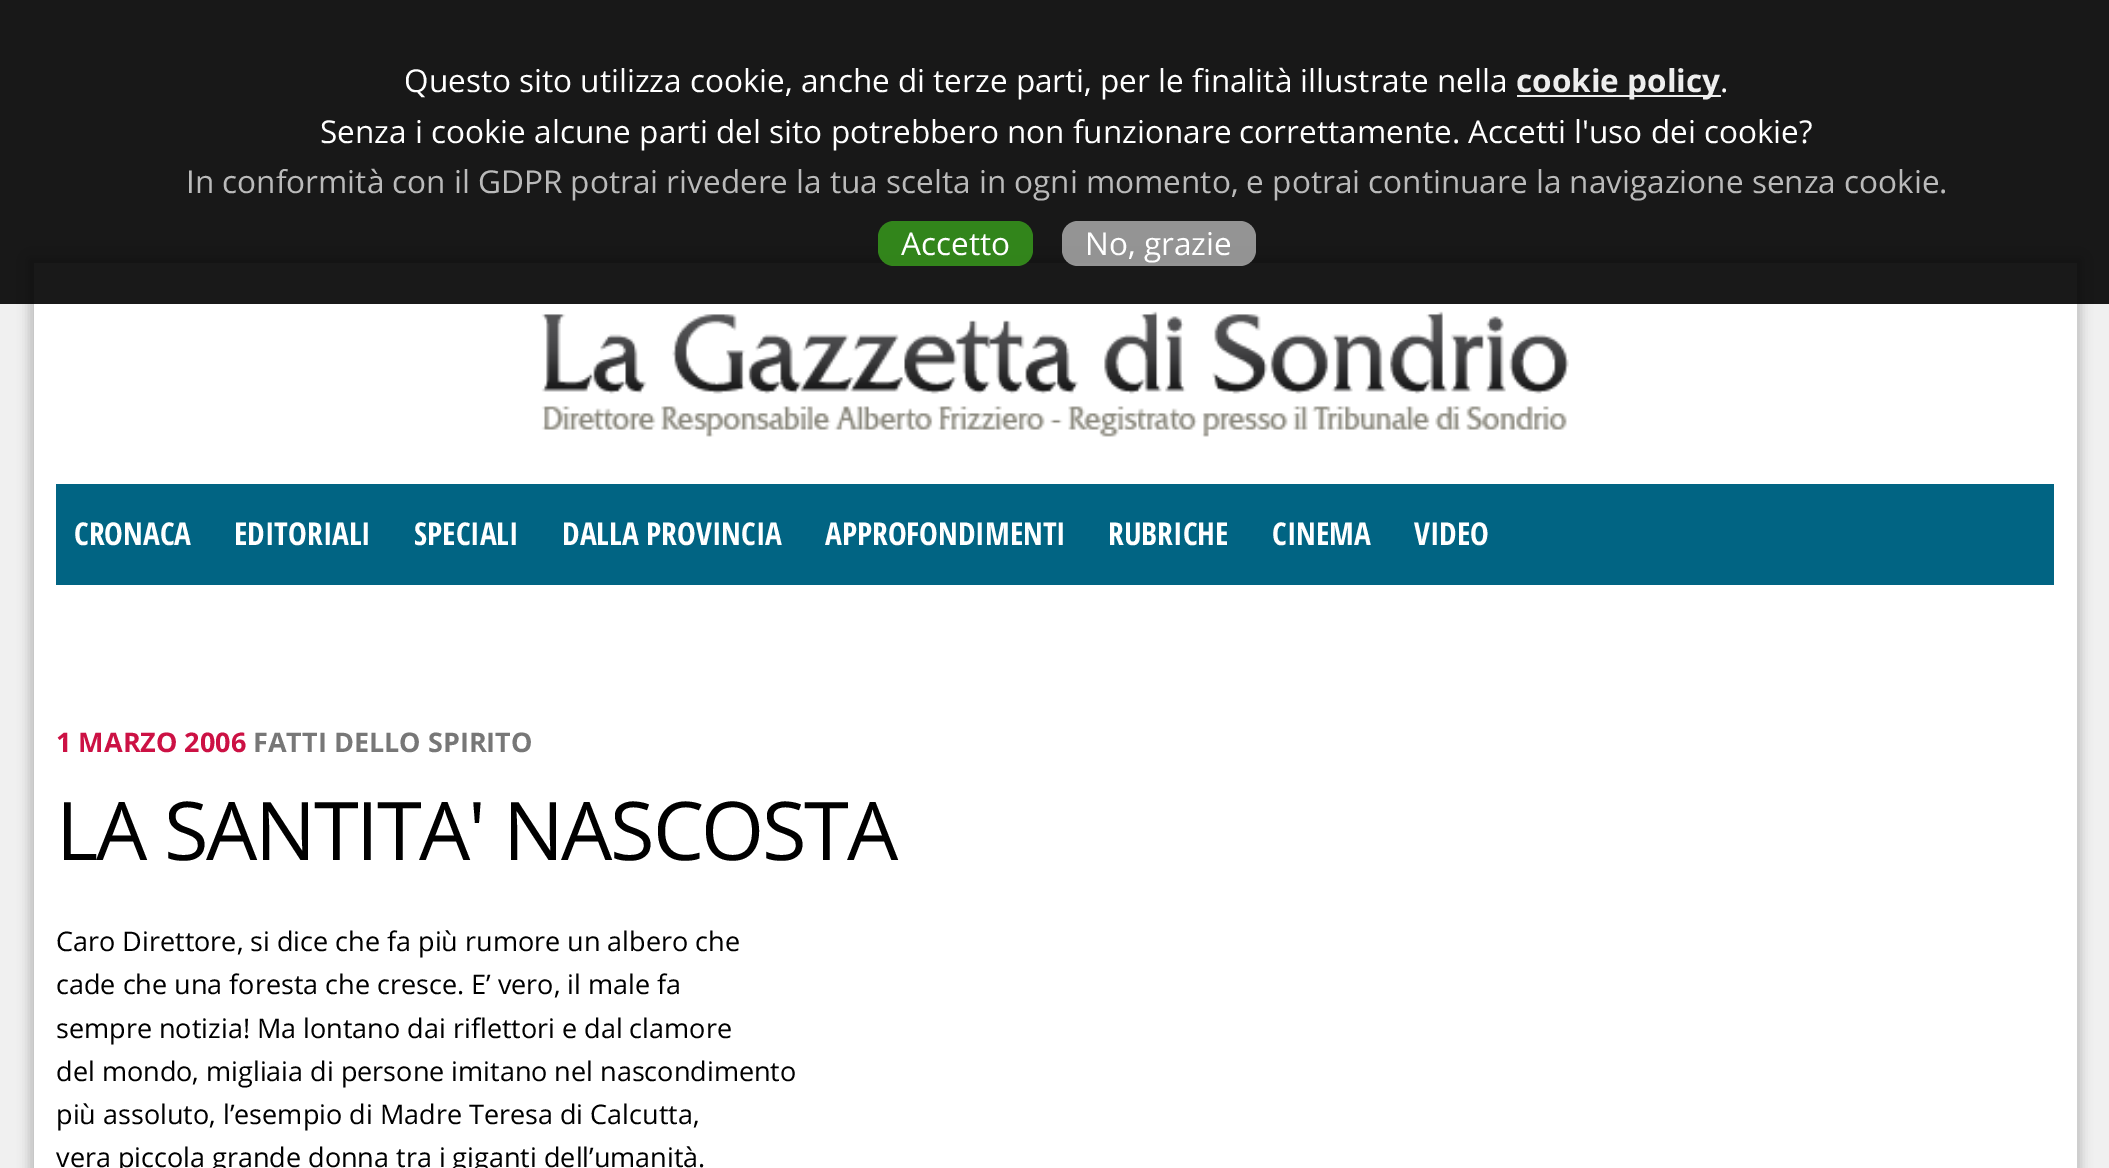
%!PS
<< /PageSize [2109 1168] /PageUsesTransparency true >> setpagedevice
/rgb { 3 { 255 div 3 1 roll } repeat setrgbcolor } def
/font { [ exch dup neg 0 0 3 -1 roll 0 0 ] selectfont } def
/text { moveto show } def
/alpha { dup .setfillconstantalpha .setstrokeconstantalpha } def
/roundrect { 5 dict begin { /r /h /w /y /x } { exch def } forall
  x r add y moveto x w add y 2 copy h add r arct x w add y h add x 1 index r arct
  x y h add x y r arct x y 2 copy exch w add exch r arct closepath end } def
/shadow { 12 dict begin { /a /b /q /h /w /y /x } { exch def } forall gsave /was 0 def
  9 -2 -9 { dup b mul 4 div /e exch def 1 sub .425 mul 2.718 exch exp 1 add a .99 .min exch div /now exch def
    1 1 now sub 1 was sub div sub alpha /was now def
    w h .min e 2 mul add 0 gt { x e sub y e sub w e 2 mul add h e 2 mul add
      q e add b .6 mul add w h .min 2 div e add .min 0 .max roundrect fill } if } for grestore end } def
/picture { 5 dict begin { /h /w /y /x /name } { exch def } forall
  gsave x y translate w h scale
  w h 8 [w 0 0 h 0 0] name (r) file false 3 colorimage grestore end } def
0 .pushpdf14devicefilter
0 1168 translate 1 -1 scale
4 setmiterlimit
240 240 240 rgb
0 0 2109 1168 rectfill
0 0 0 rgb
29 259 2052 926 0 5.5 0.2 shadow
255 255 255 rgb
34 263 2043 905 rectfill
0.9 alpha
0 0 0 rgb
0 0 2109 304 rectfill
1 alpha
238 238 238 rgb
1517 95 204 2 rectfill
0.8 alpha
57 160 28 rgb
878 221 155 45 16 roundrect fill
0.7 alpha
200 200 200 rgb
1062 221 194 45 16 roundrect fill
1 alpha
(img_01.rgb) 541 311 1028 126 picture
1 100 131 rgb
56 484 1998 101 rectfill
/OpenSans-Regular 31.5 font
255 255 255 rgb
(Questo sito utilizza cookie, anche di terze parti, per le finalità illustrate nella) 404 92 text
/OpenSans-Bold 31.5 font
238 238 238 rgb
(cookie policy) 1516 92 text
/OpenSans-Regular 31.5 font
255 255 255 rgb
(.) 1720 92 text
(Senza i cookie alcune parti del sito potrebbero non funzionare correttamente. Accetti l'uso dei cookie?) 320 143 text
186 186 186 rgb
(In conformità con il GDPR potrai rivedere la tua scelta in ogni momento, e potrai continuare la navigazione senza cookie.) 186 193 text
255 255 255 rgb
(Accetto) 901 255 text
(No, grazie) 1085 255 text
/OpenSansCondensed-Bold 31.5 font
(CRONACA) 74 545 text
(EDITORIALI) 234 545 text
(SPECIALI) 414 545 text
(DALLA PROVINCIA) 562 545 text
(APPROFONDIMENTI) 825 545 text
(RUBRICHE) 1108 545 text
(CINEMA) 1272 545 text
(VIDEO) 1414 545 text
/OpenSans-Bold 27 font
204 17 68 rgb
(1 MARZO 2006) 56 752 text
119 119 119 rgb
(FATTI DELLO SPIRITO) 253 752 text
/OpenSans-Regular 81 font
0 0 0 rgb
56 860 moveto -2.25 0 (LA SANTITA' NASCOSTA) ashow
/OpenSans-Regular 27 font
(Caro Direttore, si dice che fa più rumore un albero che) 56 951 text
(cade che una foresta che cresce. E’ vero, il male fa) 56 994 text
(sempre notizia! Ma lontano dai riflettori e dal clamore) 56 1038 text
(del mondo, migliaia di persone imitano nel nascondimento) 56 1081 text
(più assoluto, l’esempio di Madre Teresa di Calcutta,) 56 1124 text
(vera piccola grande donna tra i giganti dell’umanità.) 56 1167 text
.poppdf14devicefilter showpage
